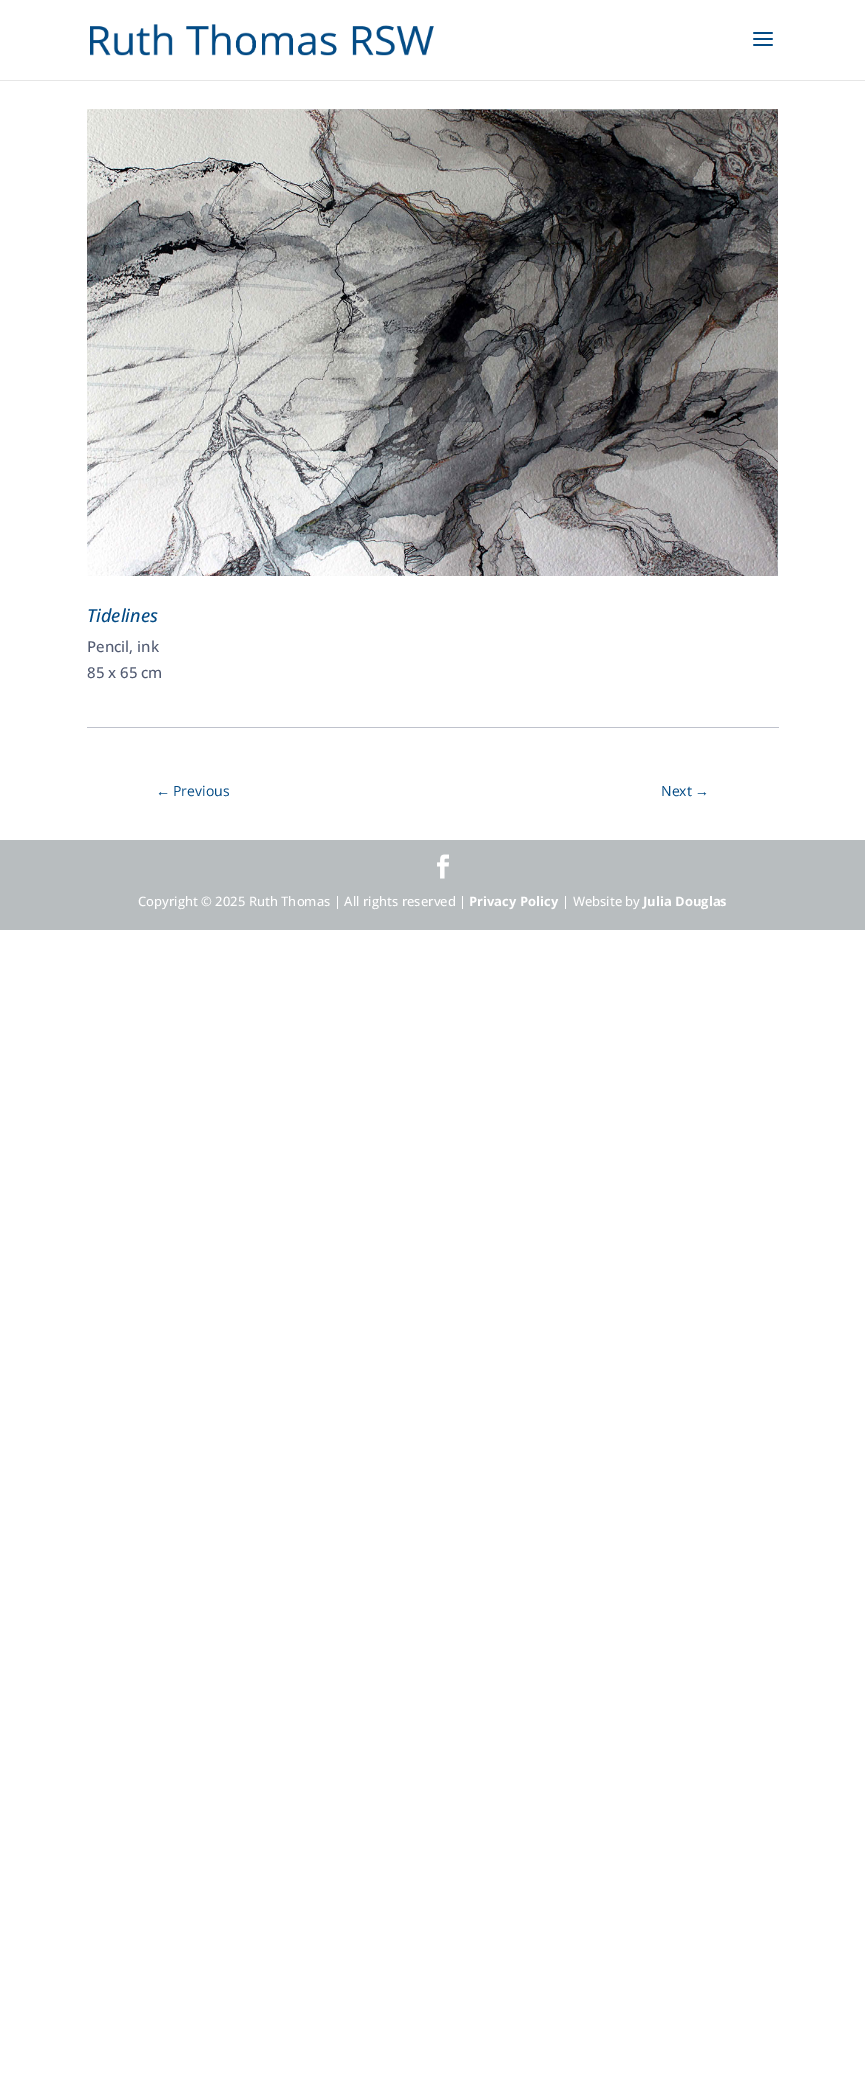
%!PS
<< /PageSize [865 2090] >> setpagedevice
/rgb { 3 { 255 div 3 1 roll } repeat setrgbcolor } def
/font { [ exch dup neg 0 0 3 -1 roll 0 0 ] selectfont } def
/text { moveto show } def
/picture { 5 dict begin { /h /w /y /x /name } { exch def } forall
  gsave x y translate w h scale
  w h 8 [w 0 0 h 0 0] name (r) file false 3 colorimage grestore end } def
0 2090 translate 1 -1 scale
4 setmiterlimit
255 255 255 rgb
0 0 865 2090 rectfill
230 230 230 rgb
0 80 865 1 rectfill
(img_01.rgb) 90 24 344 32 picture
(img_02.rgb) 753 32 20 14 picture
(img_03.rgb) 87 109 691 467 picture
191 194 204 rgb
87 727 692 1 rectfill
184 189 191 rgb
0 840 865 90 rectfill
(img_04.rgb) 437 854 12 25 picture
/OpenSans-MediumItalic 18 font
3 75 133 rgb
(Tidelines) 87 622 text
/OpenSans-Medium 15 font
82 91 114 rgb
(Pencil, ink) 87 652 text
(85 x 65 cm) 87 678 text
/LiberationSans-Regular 14 font
3 75 133 rgb
(←) 156 796 text
/OpenSans-Regular 14 font
(Previous) 173 796 text
(Next) 661 796 text
/LiberationSans-Regular 14 font
(→) 695 796 text
/OpenSans-Medium 13 font
255 255 255 rgb
(Copyright © 2025 Ruth Thomas | All rights reserved |) 138 906 text
/OpenSans-Bold 13 font
(Privacy Policy) 469 906 text
/OpenSans-Medium 13 font
(| Website by) 562 906 text
/OpenSans-Bold 13 font
(Julia Douglas) 643 906 text
showpage
